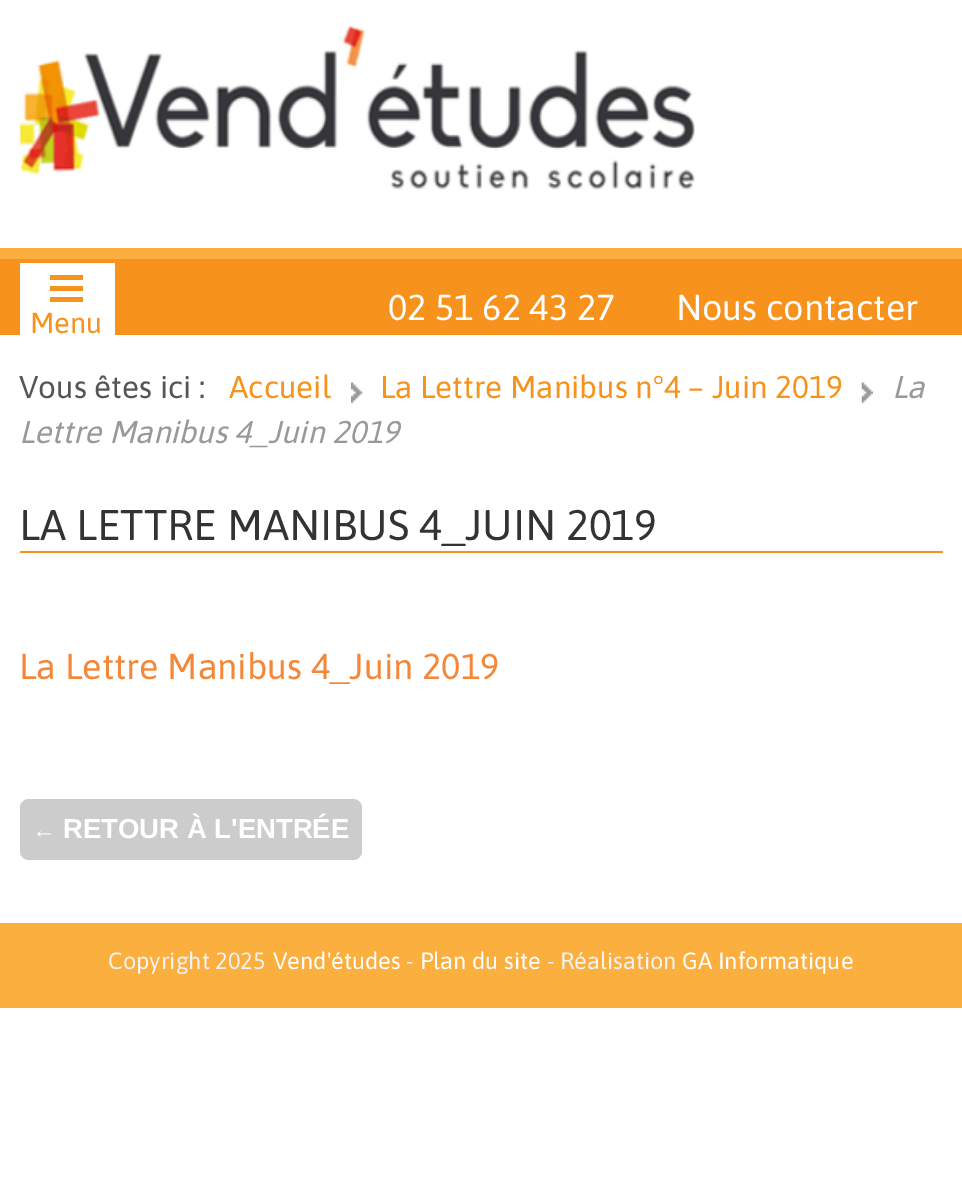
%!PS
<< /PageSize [962 1196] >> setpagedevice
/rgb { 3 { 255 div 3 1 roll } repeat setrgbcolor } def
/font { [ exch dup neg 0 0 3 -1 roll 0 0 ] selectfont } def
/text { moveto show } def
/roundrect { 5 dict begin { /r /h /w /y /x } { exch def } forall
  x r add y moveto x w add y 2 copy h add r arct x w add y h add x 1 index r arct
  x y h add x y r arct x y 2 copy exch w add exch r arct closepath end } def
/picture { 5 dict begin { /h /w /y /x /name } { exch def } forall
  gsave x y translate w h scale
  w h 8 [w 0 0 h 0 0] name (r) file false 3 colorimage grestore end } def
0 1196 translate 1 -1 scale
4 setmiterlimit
255 255 255 rgb
0 0 962 1196 rectfill
251 175 63 rgb
0 248 962 11 rectfill
(img_01.rgb) 18 25 677 165 picture
247 147 29 rgb
0 259 962 76 rectfill
(img_02.rgb) 351 382 12 21 picture
(img_03.rgb) 861 382 12 21 picture
20 551 923 2 rectfill
204 204 204 rgb
20 799 342 61 9 roundrect fill
251 175 63 rgb
0 923 962 85 rectfill
255 255 255 rgb
20 263 95 72 rectfill
247 147 29 rgb
50 275 33 5 rectfill
50 286 33 5 rectfill
50 297 33 5 rectfill
/Asap-Regular 36 font
255 255 255 rgb
(02 51 62 43 27) 388 320 text
(Nous contacter) 676 320 text
/Asap-Regular 31.5 font
85 85 85 rgb
(Vous êtes ici :) 19 398 text
247 147 29 rgb
(Accueil) 229 398 text
(La Lettre Manibus n°4 – Juin 2019) 380 398 text
/Asap-Italic 31.5 font
153 153 153 rgb
(La) 892 398 text
(Lettre Manibus 4_Juin 2019) 19 443 text
/Asap-Regular 42.75 font
51 51 51 rgb
(LA LETTRE MANIBUS 4_JUIN 2019) 19 540 text
/Asap-Regular 36 font
245 135 57 rgb
(La Lettre Manibus 4_Juin 2019) 19 679 text
/LiberationSans-Bold 24 font
255 255 255 rgb
(←) 32 838 text
/LiberationSans-Bold 27.5 font
(RETOUR À L'ENTRÉE) 63 838 text
/Asap-Regular 23.5 font
242 242 242 rgb
(Copyright 2025) 108 969 text
255 255 255 rgb
(Vend'études) 273 969 text
242 242 242 rgb
(-) 406 969 text
255 255 255 rgb
(Plan du site) 420 969 text
242 242 242 rgb
(- Réalisation) 547 969 text
255 255 255 rgb
(GA Informatique) 682 969 text
/Asap-Regular 29 font
247 147 29 rgb
(Menu) 30 333 text
showpage
